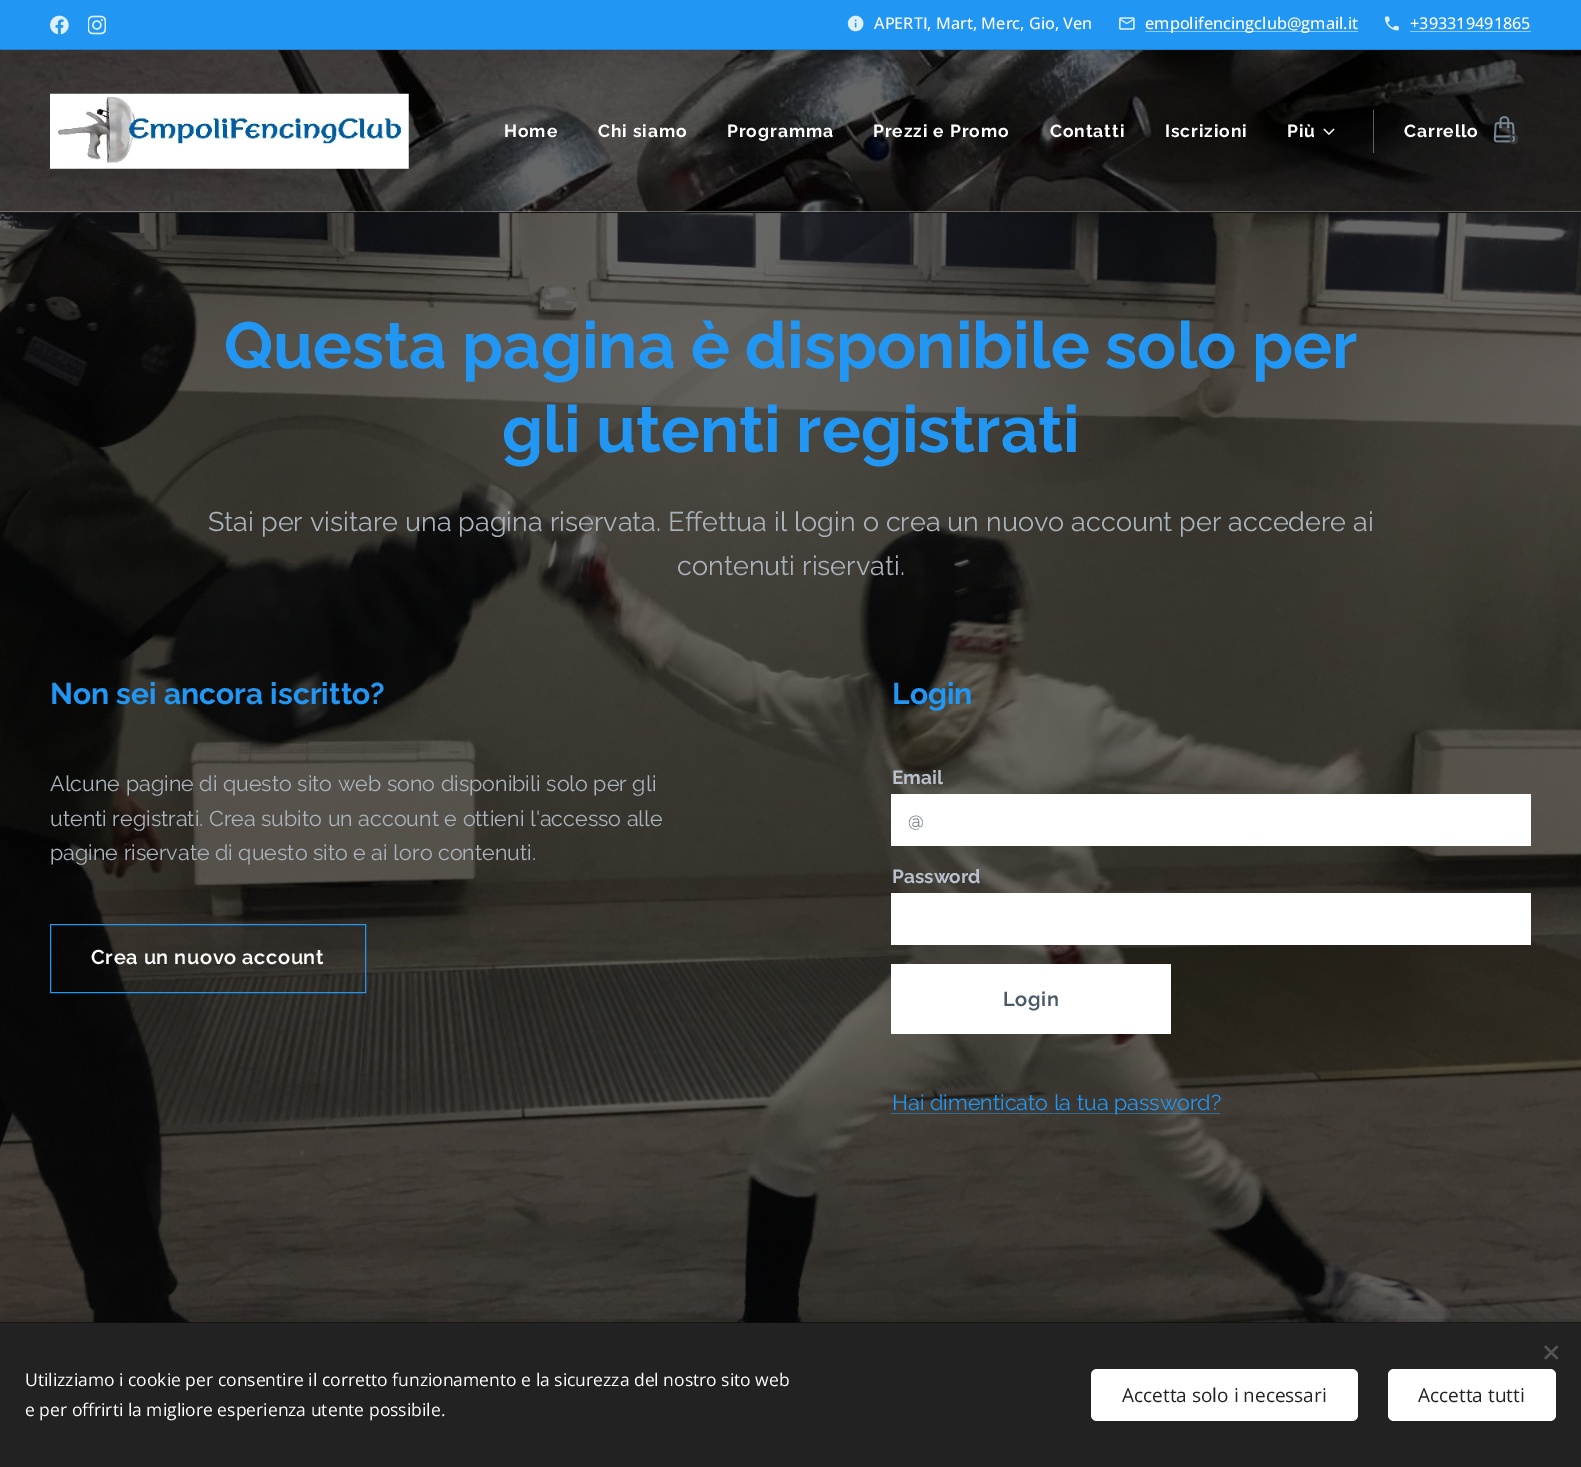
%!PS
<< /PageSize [1581 1467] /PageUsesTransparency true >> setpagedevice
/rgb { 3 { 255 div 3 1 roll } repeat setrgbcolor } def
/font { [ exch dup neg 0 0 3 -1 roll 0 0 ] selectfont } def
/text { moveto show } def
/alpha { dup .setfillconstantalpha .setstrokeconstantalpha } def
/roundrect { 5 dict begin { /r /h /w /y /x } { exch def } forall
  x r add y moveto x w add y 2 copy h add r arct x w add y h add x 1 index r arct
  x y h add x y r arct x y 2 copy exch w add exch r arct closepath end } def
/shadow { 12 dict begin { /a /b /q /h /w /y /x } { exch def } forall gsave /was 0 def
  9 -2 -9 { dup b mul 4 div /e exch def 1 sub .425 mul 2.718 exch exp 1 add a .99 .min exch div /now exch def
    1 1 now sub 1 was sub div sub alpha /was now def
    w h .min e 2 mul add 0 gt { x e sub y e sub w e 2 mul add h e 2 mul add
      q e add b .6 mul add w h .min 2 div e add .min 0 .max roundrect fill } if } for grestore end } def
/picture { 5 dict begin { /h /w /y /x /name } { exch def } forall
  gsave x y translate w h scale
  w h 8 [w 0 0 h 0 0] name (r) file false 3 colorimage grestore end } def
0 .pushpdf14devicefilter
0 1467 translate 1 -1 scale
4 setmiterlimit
16 16 16 rgb
0 0 1581 1467 rectfill
33 150 243 rgb
0 0 1581 49 rectfill
(img_01.rgb) 50 15 19 20 picture
(img_02.rgb) 88 15 18 20 picture
(img_03.rgb) 847 15 17 17 picture
(img_04.rgb) 1119 17 16 13 picture
144 203 249 rgb
1145 31 213 1 rectfill
(img_05.rgb) 1384 16 15 15 picture
1410 31 121 1 rectfill
28 128 207 rgb
0 49 1581 1 rectfill
39 39 39 rgb
0 212 1581 1 rectfill
(img_06.rgb) 0 50 1581 163 picture
0.6 alpha
0 0 0 rgb
0 50 1581 163 rectfill
1 alpha
(img_07.rgb) 50 93 359 76 picture
(img_08.rgb) 1323 128 12 7 picture
0.35 alpha
255 255 255 rgb
1373 110 1 43 rectfill
1 alpha
(img_09.rgb) 1493 116 22 27 picture
0.3 alpha
0 211 1581 1 rectfill
1 alpha
(img_10.rgb) 0 213 1581 1110 picture
33 150 243 rgb
50.5 924.5 315 68 rectstroke
255 255 255 rgb
891 794 640 52 rectfill
891 893 640 52 rectfill
891 964 280 70 rectfill
0.5 alpha
33 150 243 rgb
891 1113 329 1 rectfill
1 alpha
0 0 0 rgb
0 1323 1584 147 0 15.5 0.33 shadow
34 34 34 rgb
0 1323 1581 144 rectfill
85 85 85 rgb
1544 1358 moveto 12.5 -12.5 rlineto 2 1.5 rlineto -12.5 12.5 rlineto closepath fill
1546 1345.5 moveto 12.5 12.5 rlineto -2 1.5 rlineto -12.5 -12.5 rlineto closepath fill
255 255 255 rgb
1091 1369 267 52 6 roundrect fill
1388 1369 168 52 6 roundrect fill
/OpenSans-Medium 16.25 font
(APERTI, Mart, Merc, Gio, Ven) 874 29 text
(empolifencingclub@gmail.it) 1145 29 text
(+393319491865) 1410 29 text
/Raleway-Bold 17.5 font
504 137 moveto 0.9 0 (Home) ashow
598 137 moveto 0.9 0 (Chi siamo) ashow
727 137 moveto 0.9 0 (Programma) ashow
873 137 moveto 0.9 0 (Prezzi e Promo) ashow
1050 137 moveto 0.9 0 (Contatti) ashow
1165 137 moveto 0.9 0 (Iscrizioni) ashow
1287 137 moveto 0.9 0 (Più) ashow
1404 137 moveto 0.9 0 (Carrello) ashow
/Montserrat-Bold 14 font
57 60 63 rgb
(0) 1509 144 text
/Raleway-Bold 65 font
33 150 243 rgb
(Questa pagina è disponibile solo per) 224 368 text
(gli utenti registrati) 502 452 text
/Raleway-Regular 27 font
170 178 187 rgb
(Stai per visitare una pagina riservata. Effettua il login o crea un nuovo account per accedere ai) 208 531 text
(contenuti riservati.) 677 575 text
/Raleway-Bold 30 font
33 150 243 rgb
(Non sei ancora iscritto?) 50 704 text
/Raleway-Regular 21.5 font
170 178 187 rgb
(Alcune pagine di questo sito web sono disponibili solo per gli) 50 791 text
(utenti registrati. Crea subito un account e ottieni l'accesso alle) 50 826 text
(pagine riservate di questo sito e ai loro contenuti.) 50 860 text
/Raleway-SemiBold 20 font
255 255 255 rgb
91 964 moveto 0.6 0 (Crea un nuovo account) ashow
/Raleway-Bold 30 font
33 150 243 rgb
(Login) 892 704 text
/Raleway-Bold 19 font
185 194 204 rgb
(Email) 892 784 text
/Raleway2-Regular 19 font
107 118 128 rgb
(@) 908 827 text
/Raleway-Bold 19 font
185 194 204 rgb
(Password) 892 883 text
/Raleway-SemiBold 20 font
73 89 104 rgb
1003 1006 moveto 0.6 0 (Login) ashow
/Raleway-Regular 21.5 font
33 150 243 rgb
(Hai dimenticato la tua password?) 892 1110 text
/OpenSans-Regular 17.5 font
255 255 255 rgb
(Utilizziamo i cookie per consentire il corretto funzionamento e la sicurezza del nostro sito web) 25 1386 text
(e per offrirti la migliore esperienza utente possibile.) 25 1416 text
/OpenSans-Regular 19 font
34 34 34 rgb
(Accetta solo i necessari) 1122 1402 text
(Accetta tutti) 1418 1402 text
.poppdf14devicefilter showpage
